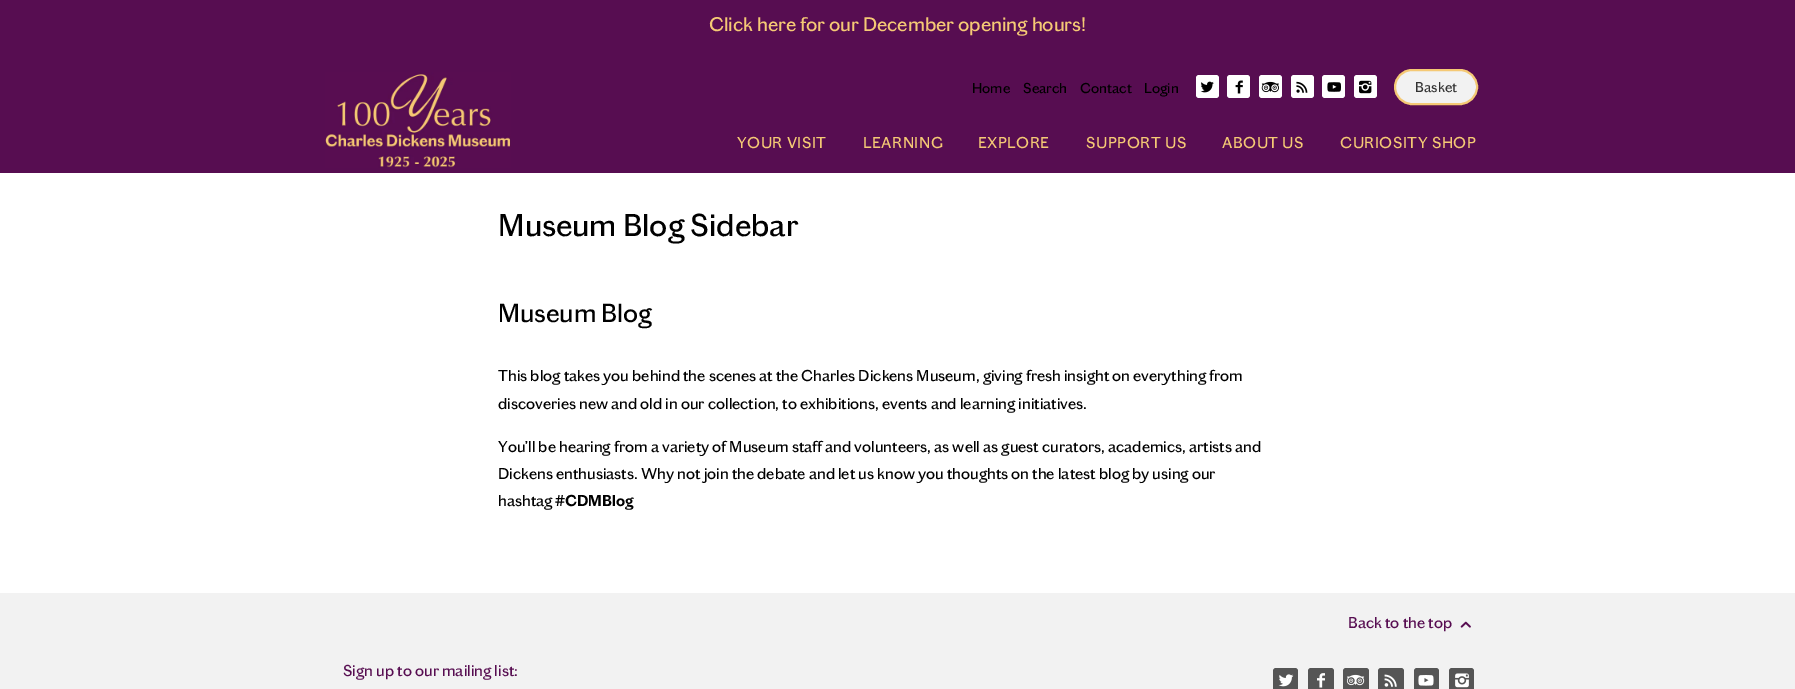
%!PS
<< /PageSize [1795 689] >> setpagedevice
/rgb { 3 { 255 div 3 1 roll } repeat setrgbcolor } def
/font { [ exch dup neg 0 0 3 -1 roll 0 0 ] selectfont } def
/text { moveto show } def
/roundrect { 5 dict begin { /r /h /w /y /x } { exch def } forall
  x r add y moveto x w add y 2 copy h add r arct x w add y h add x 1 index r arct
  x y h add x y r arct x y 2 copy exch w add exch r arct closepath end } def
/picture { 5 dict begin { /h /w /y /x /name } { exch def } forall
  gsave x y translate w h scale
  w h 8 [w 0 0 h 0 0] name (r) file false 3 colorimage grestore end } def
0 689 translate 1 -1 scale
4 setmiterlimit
242 242 242 rgb
0 0 1795 689 rectfill
255 255 255 rgb
0 173 1795 420 rectfill
87 13 81 rgb
0 0 1795 173 rectfill
(img_01.rgb) 325 72 186 96 picture
255 255 255 rgb
1196 75 23 23 3 roundrect fill
(img_02.rgb) 1200 81 14 12 picture
1227 75 23 23 3 roundrect fill
(img_03.rgb) 1235 80 8 14 picture
1259 75 23 23 3 roundrect fill
(img_04.rgb) 1261 81 18 12 picture
1291 75 23 23 3 roundrect fill
(img_05.rgb) 1296 81 12 12 picture
1322 75 23 23 3 roundrect fill
(img_06.rgb) 1327 82 14 10 picture
1354 75 23 23 3 roundrect fill
(img_07.rgb) 1359 80 13 14 picture
242 242 242 rgb
1395 70 82 34 17 roundrect gsave fill grestore
245 201 117 rgb
2 setlinewidth
stroke
(img_08.rgb) 1460 621 11 7 picture
85 85 85 rgb
1273 668 25 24 3 roundrect fill
(img_09.rgb) 1278 674 16 13 picture
1308 668 26 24 3 roundrect fill
(img_10.rgb) 1317 673 8 15 picture
1343 668 26 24 3 roundrect fill
(img_11.rgb) 1346 674 19 12 picture
1378 668 26 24 3 roundrect fill
(img_12.rgb) 1384 674 13 13 picture
1414 668 25 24 3 roundrect fill
(img_13.rgb) 1418 675 16 11 picture
1449 668 25 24 3 roundrect fill
(img_14.rgb) 1455 673 14 15 picture
/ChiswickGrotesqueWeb-Regular 20 font
245 201 117 rgb
(Click here for our December opening hours!) 709 31 text
/ChiswickGrotesqueWeb-Regular 14.5 font
0 0 0 rgb
(Home) 972 93 text
(Search) 1023 93 text
(Contact) 1080 93 text
(Login) 1144 93 text
51 51 51 rgb
(Basket) 1415 92 text
/ChiswickGrotesqueWeb-Regular 16 font
245 201 117 rgb
737 148 moveto 0.5 0 (YOUR VISIT) ashow
863 148 moveto 0.5 0 (LEARNING) ashow
978 148 moveto 0.5 0 (EXPLORE) ashow
1086 148 moveto 0.5 0 (SUPPORT US) ashow
1222 148 moveto 0.5 0 (ABOUT US) ashow
1340 148 moveto 0.5 0 (CURIOSITY SHOP) ashow
/ChiswickGrotesqueWeb-Regular 32 font
0 0 0 rgb
(Museum Blog Sidebar) 498 236 text
/ChiswickGrotesqueWeb-Regular 26.5 font
(Museum Blog) 498 322 text
/ChiswickGrotesqueWeb-Regular 16 font
(This blog takes you behind the scenes at the Charles Dickens Museum, giving fresh insight on everything from) 498 381 text
(discoveries new and old in our collection, to exhibitions, events and learning initiatives.) 498 409 text
(You’ll be hearing from a variety of Museum staff and volunteers, as well as guest curators, academics, artists and) 498 452 text
(Dickens enthusiasts. Why not join the debate and let us know you thoughts on the latest blog by using our) 498 479 text
(hashtag) 498 506 text
/ChiswickGrotesqueWeb-SemiBold 16 font
(#CDMBlog) 555 506 text
/ChiswickGrotesqueWeb-Regular 16 font
87 13 81 rgb
(Back to the top) 1348 628 text
(Sign up to our mailing list:) 343 676 text
showpage
